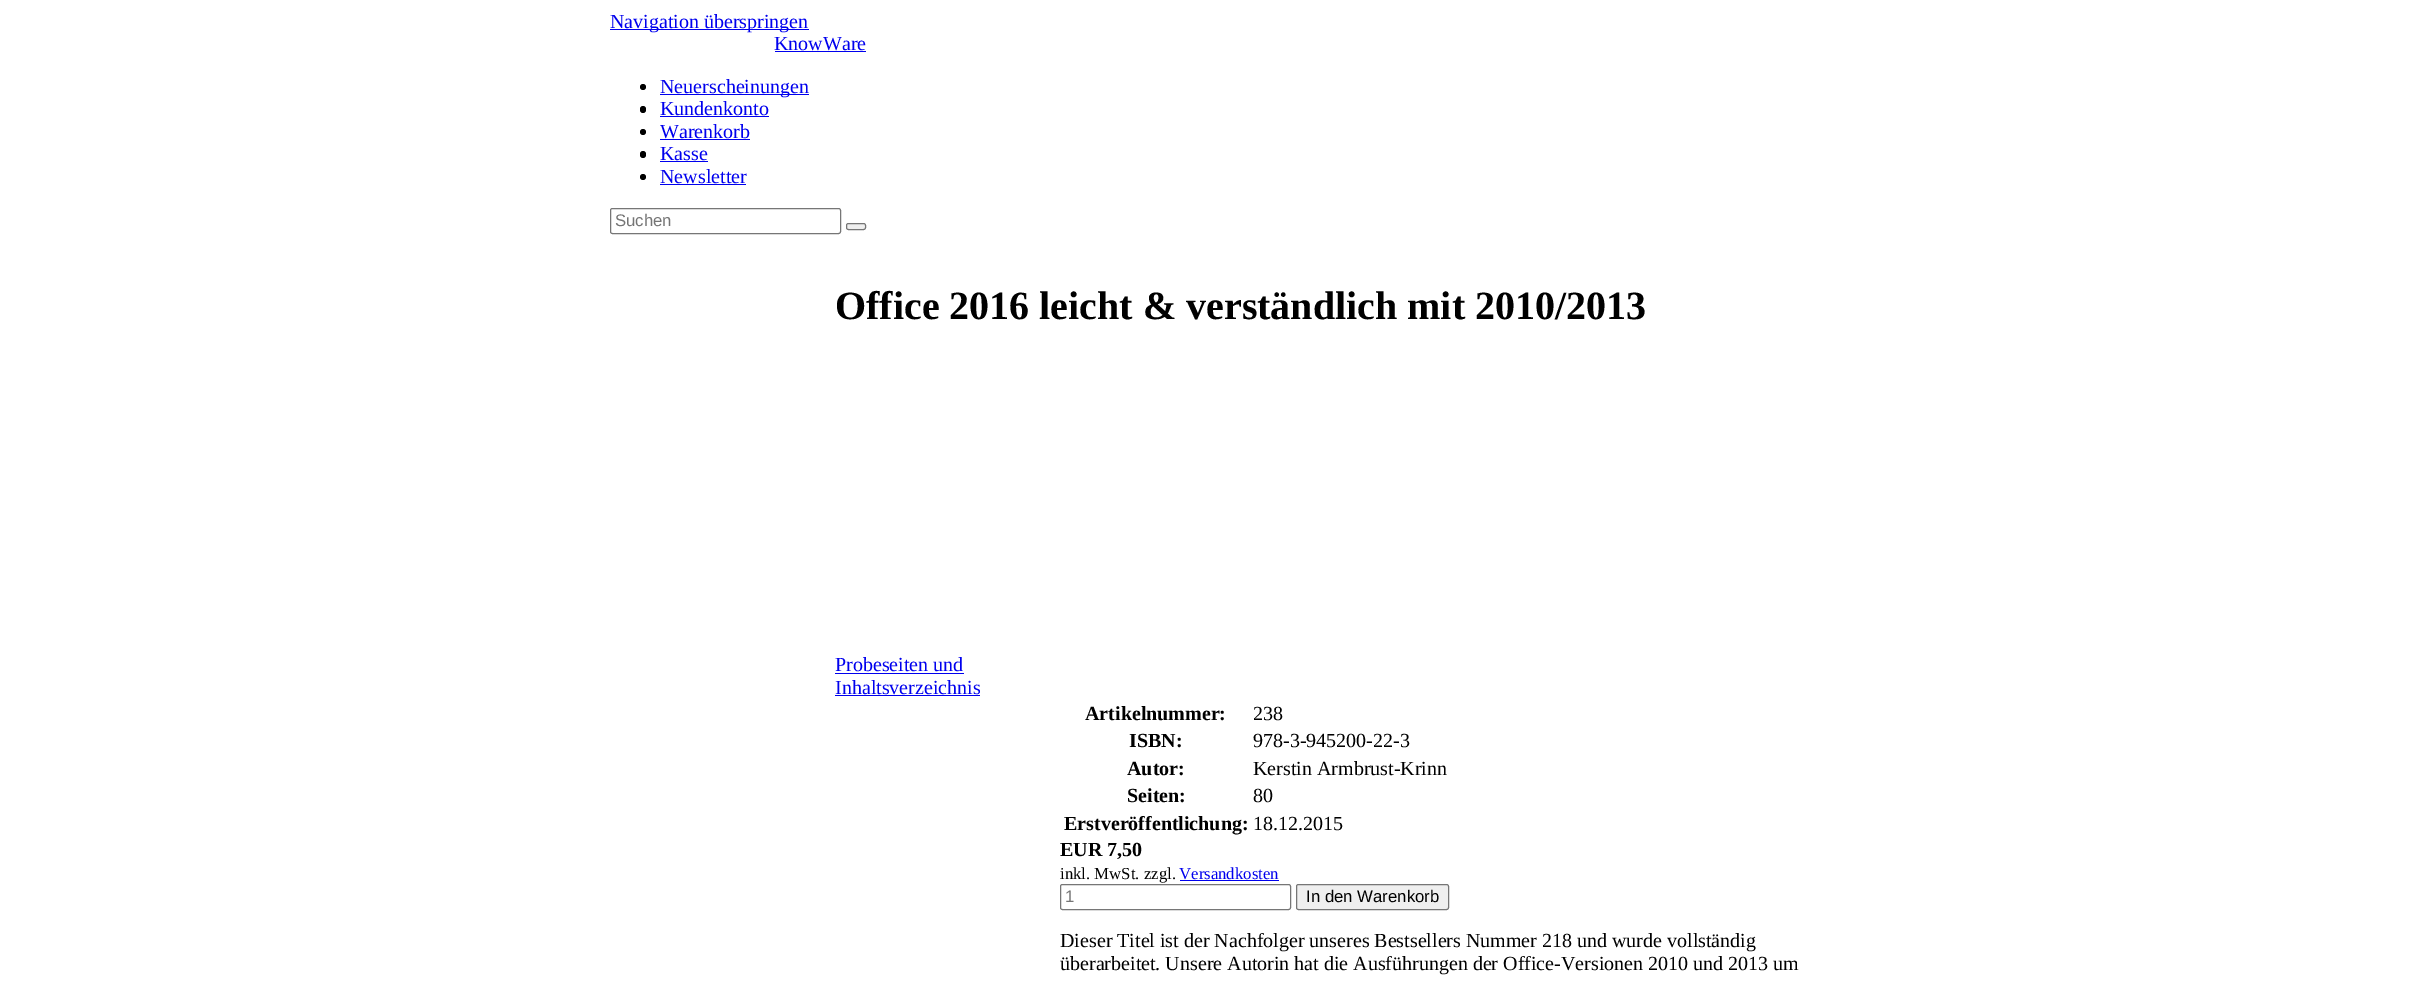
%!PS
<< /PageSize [2419 982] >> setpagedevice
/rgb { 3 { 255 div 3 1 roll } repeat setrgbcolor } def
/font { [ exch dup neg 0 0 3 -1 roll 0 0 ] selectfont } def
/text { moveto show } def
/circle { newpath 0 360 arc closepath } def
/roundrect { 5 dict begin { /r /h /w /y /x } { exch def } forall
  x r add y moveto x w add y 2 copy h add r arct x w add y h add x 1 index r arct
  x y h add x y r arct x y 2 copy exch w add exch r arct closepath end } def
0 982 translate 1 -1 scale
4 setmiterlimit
255 255 255 rgb
0 0 2419 982 rectfill
0 0 238 rgb
610 29 199 1 rectfill
775 51 91 1 rectfill
0 0 0 rgb
643 87 3 circle fill
0 0 238 rgb
660 94 149 1 rectfill
0 0 0 rgb
640 106 6 7 3 roundrect fill
0 0 238 rgb
660 116 109 1 rectfill
0 0 0 rgb
643 132 3 circle fill
0 0 238 rgb
660 139 90 1 rectfill
0 0 0 rgb
640 151 6 7 3 roundrect fill
0 0 238 rgb
660 161 48 1 rectfill
0 0 0 rgb
643 177 3 circle fill
0 0 238 rgb
660 184 86 1 rectfill
118 118 118 rgb
610.5 208.5 230 25 2 roundrect stroke
239 239 239 rgb
846.5 223.5 19 6 2 roundrect gsave fill grestore
118 118 118 rgb
stroke
0 0 238 rgb
835 673 129 1 rectfill
835 695 145 1 rectfill
1180 880 99 1 rectfill
118 118 118 rgb
1060.5 884.5 230 25 2 roundrect stroke
239 239 239 rgb
1296.5 884.5 152 25 2 roundrect gsave fill grestore
118 118 118 rgb
stroke
/LiberationSerif-Regular 20 font
0 0 238 rgb
(Navigation überspringen) 610 28 text
(KnowWare) 774 50 text
(Neuerscheinungen) 660 93 text
(Kundenkonto) 660 115 text
(Warenkorb) 660 138 text
(Kasse) 660 160 text
(Newsletter) 660 183 text
/LiberationSans-Regular 16.75 font
117 117 117 rgb
(Suchen) 615 226 text
/LiberationSerif-Bold 40 font
0 0 0 rgb
(Office 2016 leicht & verständlich mit 2010/2013) 835 319 text
/LiberationSerif-Regular 20 font
0 0 238 rgb
(Probeseiten und) 835 671 text
(Inhaltsverzeichnis) 835 694 text
/LiberationSerif-Bold 20 font
0 0 0 rgb
(Artikelnummer:) 1085 720 text
/LiberationSerif-Regular 20 font
(238) 1253 720 text
/LiberationSerif-Bold 20 font
(ISBN:) 1129 747 text
/LiberationSerif-Regular 20 font
(978-3-945200-22-3) 1253 747 text
/LiberationSerif-Bold 20 font
(Autor:) 1127 775 text
/LiberationSerif-Regular 20 font
(Kerstin Armbrust-Krinn) 1253 775 text
/LiberationSerif-Bold 20 font
(Seiten:) 1127 802 text
/LiberationSerif-Regular 20 font
(80) 1253 802 text
/LiberationSerif-Bold 20 font
(Erstveröffentlichung:) 1064 830 text
/LiberationSerif-Regular 20 font
(18.12.2015) 1253 830 text
/LiberationSerif-Bold 20 font
(EUR 7,50) 1060 856 text
/LiberationSerif-Regular 16.75 font
(inkl. MwSt. zzgl.) 1060 879 text
0 0 238 rgb
(Versandkosten) 1179 879 text
/LiberationSans-Regular 16.75 font
117 117 117 rgb
(1) 1065 902 text
0 0 0 rgb
(In den Warenkorb) 1306 902 text
/LiberationSerif-Regular 20 font
(Dieser Titel ist der Nachfolger unseres Bestsellers Nummer 218 und wurde vollständig) 1060 947 text
(überarbeitet. Unsere Autorin hat die Ausführungen der Office-Versionen 2010 und 2013 um) 1060 970 text
showpage
